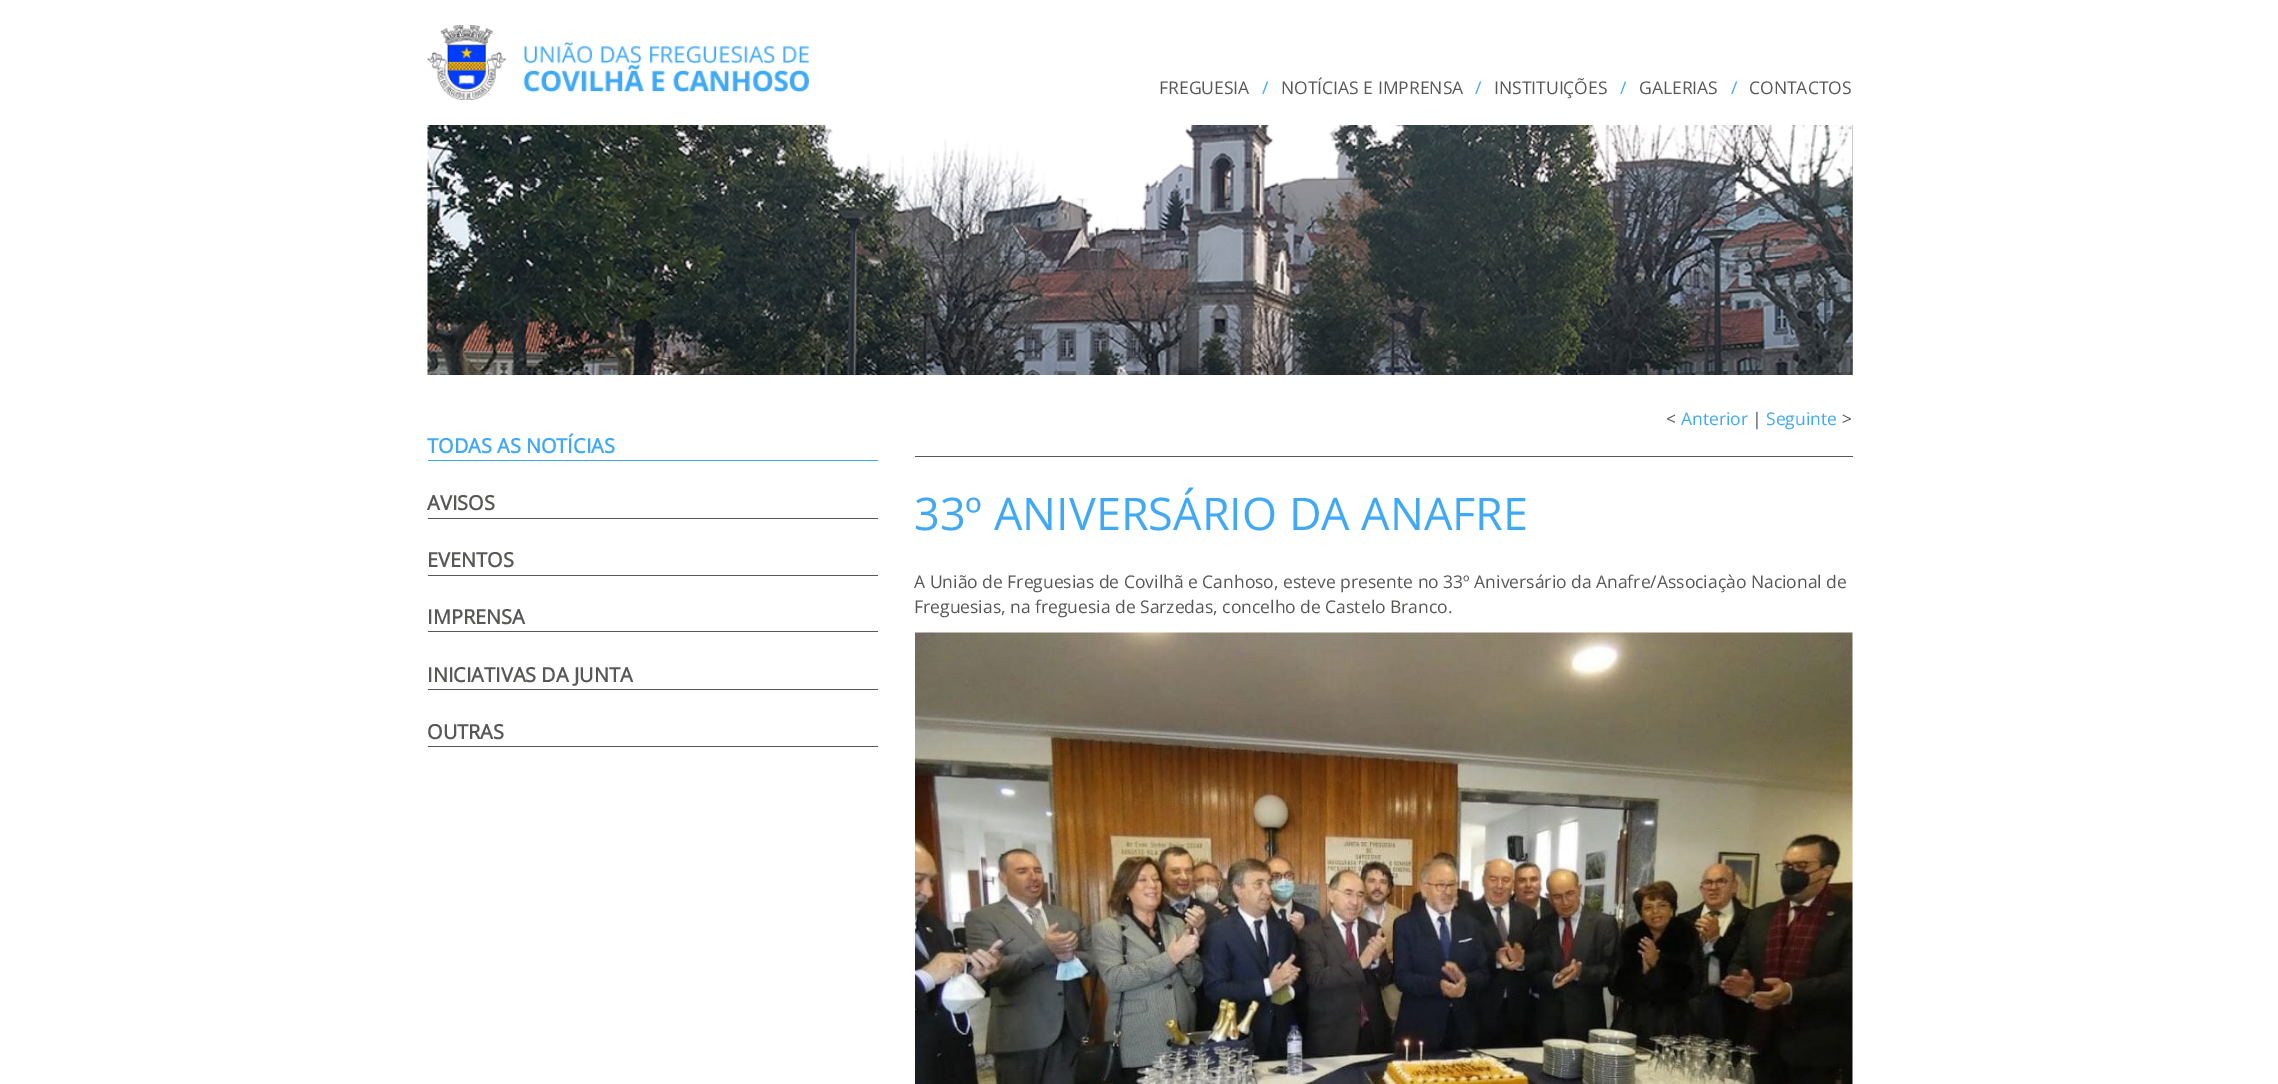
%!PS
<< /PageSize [2278 1084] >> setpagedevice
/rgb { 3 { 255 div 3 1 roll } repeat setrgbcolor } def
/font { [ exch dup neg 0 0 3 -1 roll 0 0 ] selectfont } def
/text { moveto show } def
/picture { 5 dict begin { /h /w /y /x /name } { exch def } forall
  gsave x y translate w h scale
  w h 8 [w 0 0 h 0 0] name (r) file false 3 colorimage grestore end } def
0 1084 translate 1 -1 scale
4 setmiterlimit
255 255 255 rgb
0 0 2278 1084 rectfill
(img_01.rgb) 427 25 382 75 picture
153 153 153 rgb
1852 125 1 250 rectfill
(img_02.rgb) 427 125 1426 250 picture
63 169 245 rgb
428 460 450 1 rectfill
87 87 86 rgb
428 518 450 1 rectfill
428 575 450 1 rectfill
428 631 450 1 rectfill
428 689 450 1 rectfill
428 746 450 1 rectfill
915 456 938 1 rectfill
(img_03.rgb) 915 632 938 452 picture
/OpenSans-Regular 17.5 font
(FREGUESIA) 1159 94 text
63 169 245 rgb
(/) 1262 94 text
87 87 86 rgb
(NOTÍCIAS E IMPRENSA) 1281 94 text
63 169 245 rgb
(/) 1475 94 text
87 87 86 rgb
(INSTITUIÇÕES) 1494 94 text
63 169 245 rgb
(/) 1620 94 text
87 87 86 rgb
(GALERIAS) 1639 94 text
63 169 245 rgb
(/) 1731 94 text
87 87 86 rgb
(CONTACTOS) 1749 94 text
/OpenSans-Bold 20 font
63 169 245 rgb
(TODAS AS NOTÍCIAS) 427 453 text
87 87 86 rgb
(AVISOS) 427 510 text
(EVENTOS) 427 567 text
(IMPRENSA) 427 624 text
(INICIATIVAS DA JUNTA) 427 682 text
(OUTRAS) 427 739 text
/OpenSans-Regular 17.5 font
(<) 1666 425 text
63 169 245 rgb
(Anterior) 1681 425 text
87 87 86 rgb
(|) 1752 425 text
63 169 245 rgb
(Seguinte) 1766 425 text
87 87 86 rgb
(>) 1842 425 text
/OpenSans-Regular 45 font
63 169 245 rgb
(33º ANIVERSÁRIO DA ANAFRE) 914 530 text
/OpenSans-Regular 17.5 font
87 87 86 rgb
(A União de Freguesias de Covilhã e Canhoso, esteve presente no 33º Aniversário da Anafre/Associaçào Nacional de) 914 588 text
(Freguesias, na freguesia de Sarzedas, concelho de Castelo Branco.) 914 613 text
showpage
